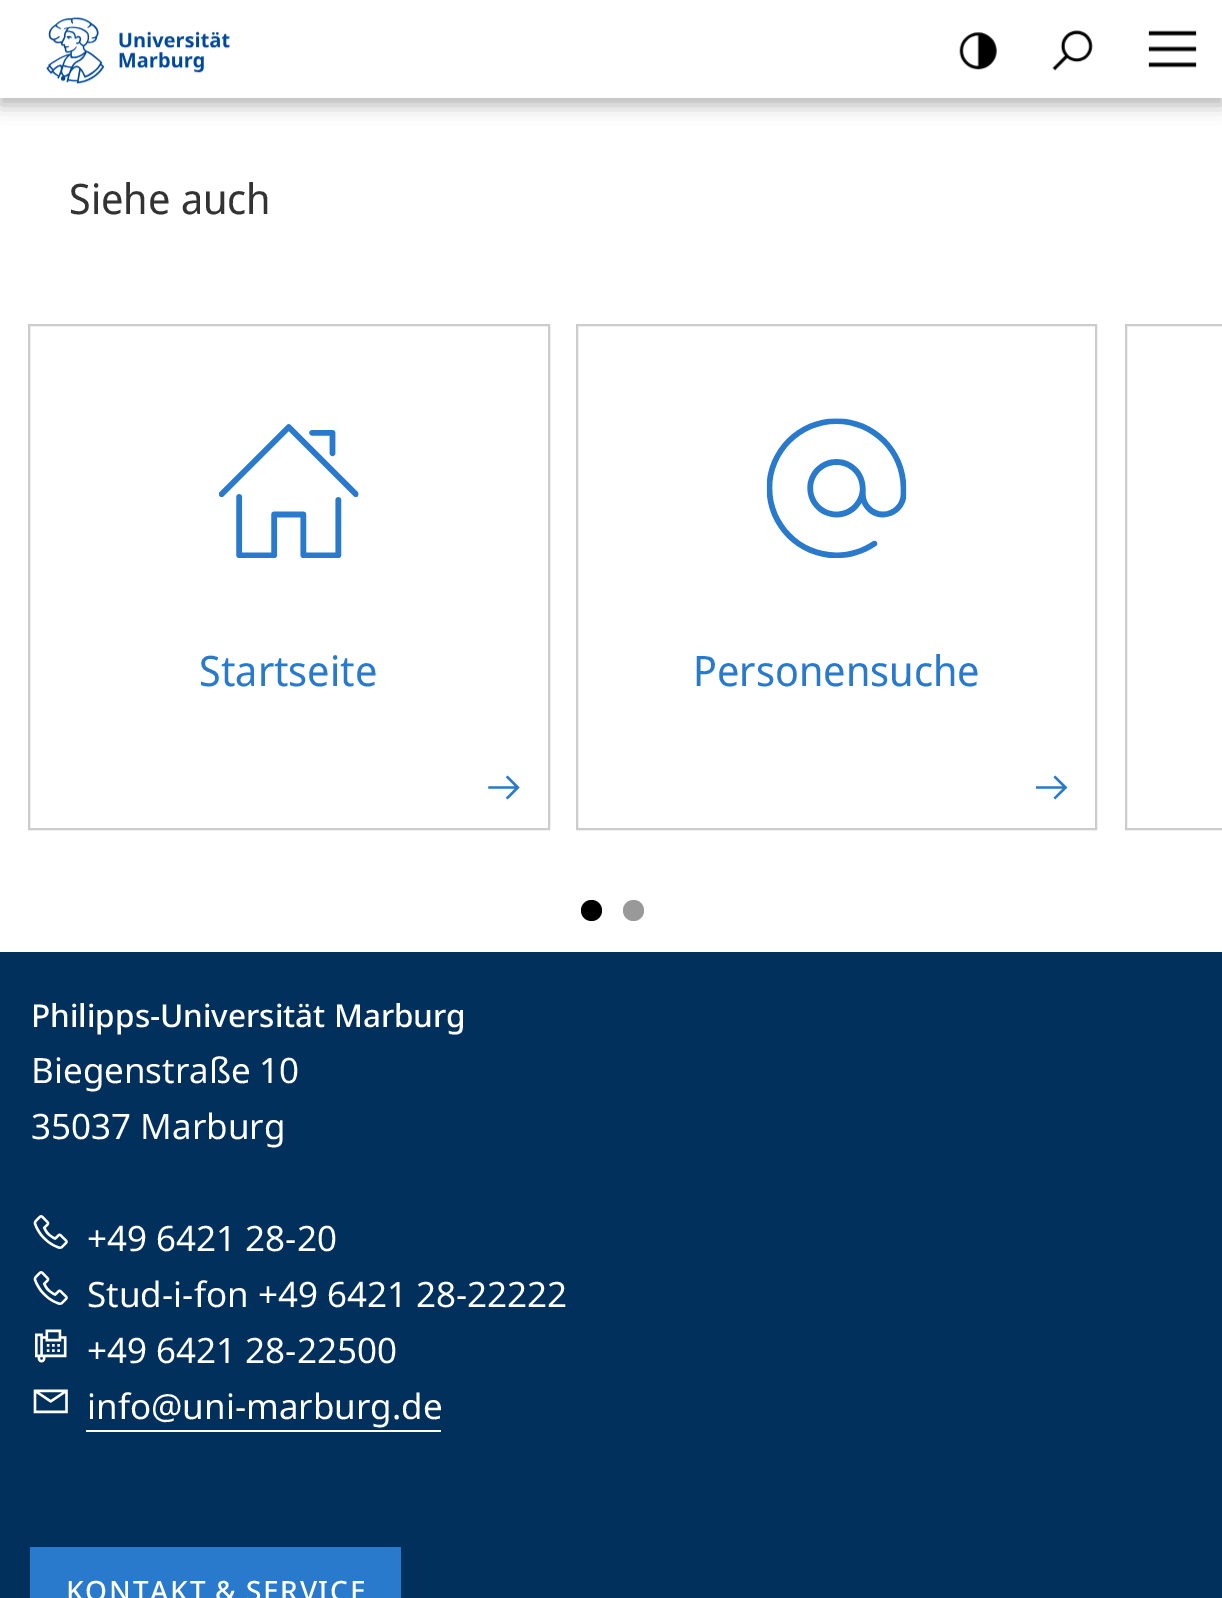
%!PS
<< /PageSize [1222 1598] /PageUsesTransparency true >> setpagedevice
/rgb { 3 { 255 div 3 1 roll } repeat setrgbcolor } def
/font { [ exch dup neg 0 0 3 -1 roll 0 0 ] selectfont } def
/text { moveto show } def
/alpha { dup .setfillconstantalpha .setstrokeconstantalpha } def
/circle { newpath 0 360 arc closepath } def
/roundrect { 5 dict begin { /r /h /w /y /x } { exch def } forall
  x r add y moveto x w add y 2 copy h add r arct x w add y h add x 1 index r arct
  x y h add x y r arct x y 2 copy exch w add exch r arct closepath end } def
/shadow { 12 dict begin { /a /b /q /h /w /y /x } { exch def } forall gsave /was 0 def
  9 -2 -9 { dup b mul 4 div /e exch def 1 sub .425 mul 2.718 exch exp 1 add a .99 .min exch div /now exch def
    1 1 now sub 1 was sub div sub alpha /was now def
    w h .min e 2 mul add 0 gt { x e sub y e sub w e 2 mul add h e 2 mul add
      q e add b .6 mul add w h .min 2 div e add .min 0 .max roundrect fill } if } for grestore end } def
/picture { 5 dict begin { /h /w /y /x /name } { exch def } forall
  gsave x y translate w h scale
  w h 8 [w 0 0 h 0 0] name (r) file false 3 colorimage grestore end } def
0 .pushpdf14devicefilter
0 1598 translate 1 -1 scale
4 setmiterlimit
255 255 255 rgb
0 0 1222 1598 rectfill
0 0 0 rgb
0 7 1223 98 0 9 0.3 shadow
255 255 255 rgb
0 0 1222 98 rectfill
(img_01.rgb) 46 17 184 68 picture
(img_02.rgb) 959 32 38 38 picture
(img_03.rgb) 1052 30 41 41 picture
(img_04.rgb) 1148 30 49 38 picture
204 204 204 rgb
2 setlinewidth
29 325 520 504 rectstroke
(img_05.rgb) 219 424 140 134 picture
(img_06.rgb) 488 775 32 25 picture
577 325 519 504 rectstroke
(img_07.rgb) 766 418 141 140 picture
(img_08.rgb) 1036 775 32 25 picture
1126 325 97 504 rectstroke
0 0 0 rgb
591.5 910.5 10.5 circle fill
153 153 153 rgb
633.5 910.5 10.5 circle fill
0 48 91 rgb
0 952 1222 646 rectfill
(img_09.rgb) 33 1215 35 34 picture
(img_09.rgb) 33 1271 35 34 picture
(img_10.rgb) 35 1329 32 34 picture
(img_11.rgb) 33 1389 35 25 picture
255 255 255 rgb
86 1430 355 2 rectfill
41 122 204 rgb
30 1547 371 51 rectfill
/NotoSansDisplay-Regular 42 font
51 51 51 rgb
(Siehe auch) 69 214 text
41 122 204 rgb
(Startseite) 199 686 text
(Personensuche) 693 686 text
/NotoSans-Medium 31.5 font
255 255 255 rgb
(Philipps-Universität Marburg) 31 1027 text
/NotoSans-Regular 35 font
31 1083 moveto -1 0 32 (Biegenstraße 10) widthshow
(35037 Marburg) 31 1139 text
(+49 6421 28-20) 87 1251 text
(Stud-i-fon +49 6421 28-22222) 87 1307 text
(+49 6421 28-22500) 87 1363 text
(info@uni-marburg.de) 87 1419 text
/NotoSans-Medium 28 font
66 1601 moveto -1 0 32 1.75 0 (KONTAKT & SERVICE) awidthshow
.poppdf14devicefilter showpage
